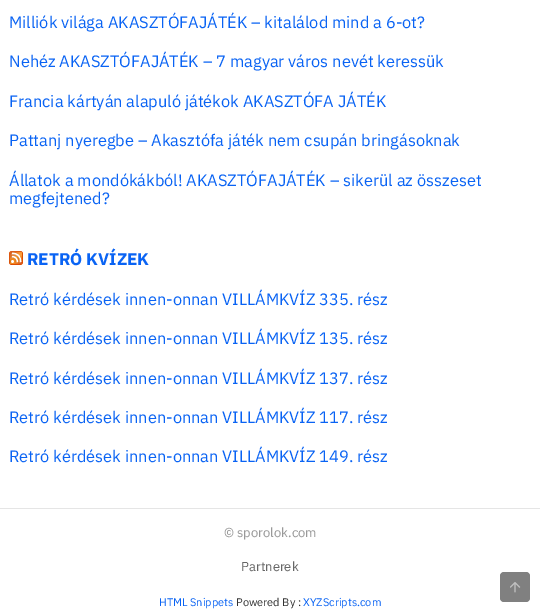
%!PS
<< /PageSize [540 612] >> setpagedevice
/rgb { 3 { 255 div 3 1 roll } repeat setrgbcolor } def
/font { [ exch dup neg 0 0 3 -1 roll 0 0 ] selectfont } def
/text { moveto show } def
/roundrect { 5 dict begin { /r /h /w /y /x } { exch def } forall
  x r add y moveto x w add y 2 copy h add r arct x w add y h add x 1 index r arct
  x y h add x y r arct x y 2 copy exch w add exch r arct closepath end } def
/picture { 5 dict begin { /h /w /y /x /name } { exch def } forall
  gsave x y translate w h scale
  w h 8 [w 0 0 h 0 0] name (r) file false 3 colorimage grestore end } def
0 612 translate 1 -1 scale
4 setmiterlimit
255 255 255 rgb
0 0 540 612 rectfill
(img_01.rgb) 9 251 14 14 picture
229 229 229 rgb
0 508 540 1 rectfill
128 128 128 rgb
500 572 30 30 4 roundrect fill
(img_02.rgb) 510 582 11 11 picture
/IBMPlexSans-Regular 16.4 font
9 99 244 rgb
(Milliók világa AKASZTÓFAJÁTÉK – kitalálod mind a 6-ot?) 9 28 text
(Nehéz AKASZTÓFAJÁTÉK – 7 magyar város nevét keressük) 9 67 text
(Francia kártyán alapuló játékok AKASZTÓFA JÁTÉK) 9 107 text
(Pattanj nyeregbe – Akasztófa játék nem csupán bringásoknak) 9 146 text
(Állatok a mondókákból! AKASZTÓFAJÁTÉK – sikerül az összeset) 9 186 text
(megfejtened?) 9 204 text
/IBMPlexSans-Bold 17 font
(RETRÓ KVÍZEK) 27 265 text
/IBMPlexSans-Regular 16.4 font
(Retró kérdések innen-onnan VILLÁMKVÍZ 335. rész) 9 305 text
(Retró kérdések innen-onnan VILLÁMKVÍZ 135. rész) 9 344 text
(Retró kérdések innen-onnan VILLÁMKVÍZ 137. rész) 9 384 text
(Retró kérdések innen-onnan VILLÁMKVÍZ 117. rész) 9 423 text
(Retró kérdések innen-onnan VILLÁMKVÍZ 149. rész) 9 462 text
/IBMPlexSans-Regular 13 font
153 153 153 rgb
(© sporolok.com) 224 537 text
102 102 102 rgb
(Partnerek) 241 571 text
/IBMPlexSans-Regular 11 font
9 99 244 rgb
(HTML Snippets) 159 606 text
51 51 51 rgb
(Powered By :) 236 606 text
9 99 244 rgb
(XYZScripts.com) 303 606 text
showpage
